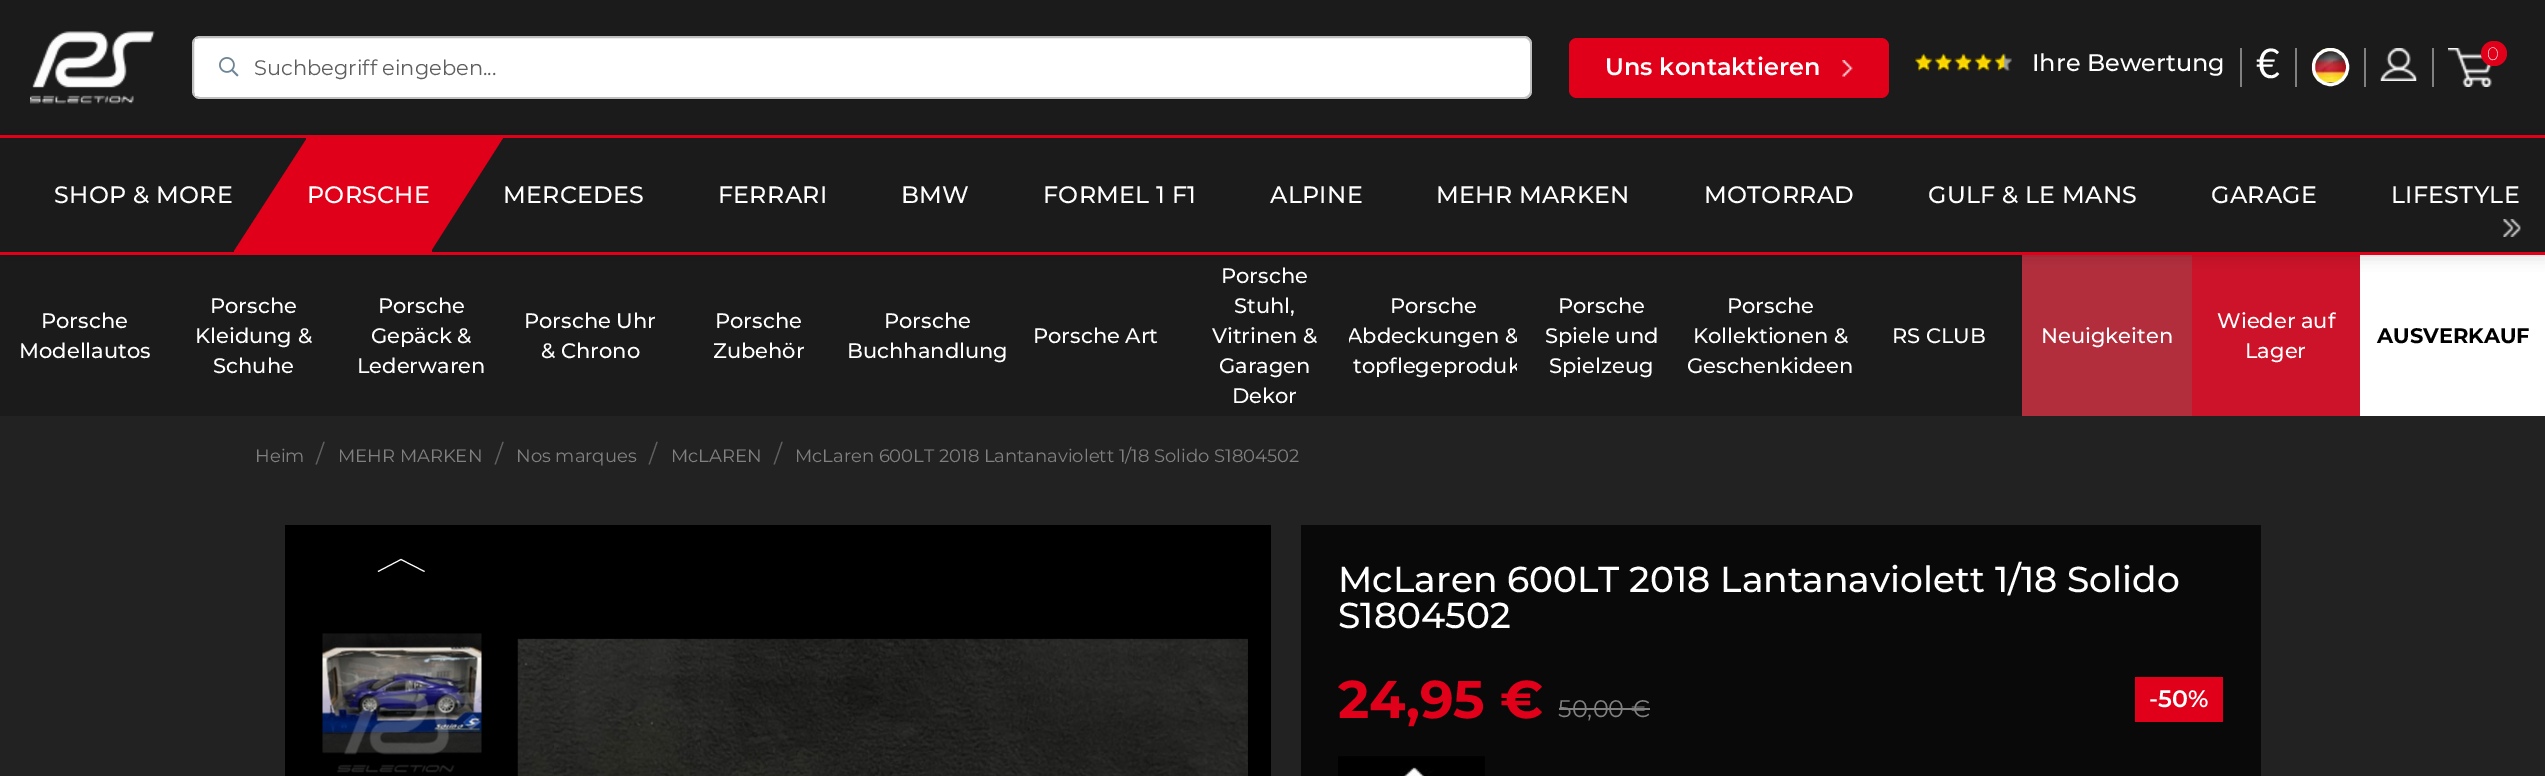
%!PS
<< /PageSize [2545 776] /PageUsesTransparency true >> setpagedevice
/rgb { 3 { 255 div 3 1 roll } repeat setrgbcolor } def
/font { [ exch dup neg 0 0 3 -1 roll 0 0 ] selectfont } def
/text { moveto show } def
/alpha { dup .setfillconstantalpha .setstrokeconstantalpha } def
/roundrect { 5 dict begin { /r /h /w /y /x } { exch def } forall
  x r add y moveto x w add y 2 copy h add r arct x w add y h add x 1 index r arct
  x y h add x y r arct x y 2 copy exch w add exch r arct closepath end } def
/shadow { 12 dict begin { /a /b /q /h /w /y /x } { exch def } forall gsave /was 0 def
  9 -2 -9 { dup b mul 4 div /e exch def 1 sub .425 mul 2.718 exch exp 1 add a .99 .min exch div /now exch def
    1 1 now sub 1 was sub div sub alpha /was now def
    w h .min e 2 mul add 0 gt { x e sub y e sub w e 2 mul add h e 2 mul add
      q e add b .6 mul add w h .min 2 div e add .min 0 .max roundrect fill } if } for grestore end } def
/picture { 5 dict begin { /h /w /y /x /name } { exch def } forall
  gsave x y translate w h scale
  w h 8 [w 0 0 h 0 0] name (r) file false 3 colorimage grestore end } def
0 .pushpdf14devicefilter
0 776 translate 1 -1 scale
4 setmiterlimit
34 34 34 rgb
0 0 2545 776 rectfill
27 27 27 rgb
0 0 2545 135 rectfill
(img_01.rgb) 30 31 125 73 picture
255 255 255 rgb
192 36 1340 63 8 roundrect fill
0.25 alpha
0 0 0 rgb
2 setlinewidth
193 37 1338 61 7 roundrect stroke
1 alpha
255 255 255 rgb
195 39 2 57 rectfill
(img_02.rgb) 219 57 20 20 picture
224 0 26 rgb
1569 38 320 60 8 roundrect fill
(img_03.rgb) 1842 60 11 17 picture
128 128 128 rgb
2240 48 2 39 rectfill
(img_04.rgb) 1914 53 98 18 picture
2295 48 2 39 rectfill
2364 48 2 39 rectfill
(img_05.rgb) 2311 48 38 38 picture
255 255 255 rgb
3 setlinewidth
2313.5 49.5 34 35 17 roundrect stroke
128 128 128 rgb
2432 48 2 39 rectfill
(img_06.rgb) 2380 48 37 33 picture
(img_07.rgb) 2448 48 44 39 picture
224 0 26 rgb
2481 41 26 25 12.5 roundrect fill
27 27 27 rgb
0 255 2022 161 rectfill
178 46 61 rgb
2022 255 170 161 rectfill
205 19 41 rgb
2192 255 168 161 rectfill
255 255 255 rgb
2360 255 185 161 rectfill
0 0 0 rgb
0 135 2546 120 0 7.5 0.19 shadow
27 27 27 rgb
0 138 2545 114 rectfill
224 0 26 rgb
0 135 2545 3 rectfill
0 252 2545 3 rectfill
234 138 198 114 rectfill
27 27 27 rgb
233 138 moveto 73 0 rlineto 0 1 rlineto -73 113 rlineto closepath fill
224 0 26 rgb
431 138 moveto 0 113 rlineto 72 -113 rlineto closepath fill
(img_08.rgb) 2503 219 18 18 picture
0 0 0 rgb
285 525 986 251 rectfill
255 255 255 rgb
1 setlinewidth
378 571.5 moveto 23 -12 rlineto 23.5 12 rlineto stroke
(img_09.rgb) 322 633 160 140 picture
(img_10.rgb) 517 638 731 138 picture
9 9 9 rgb
1301 525 960 251 rectfill
128 128 128 rgb
1559 708 91 2 rectfill
224 0 26 rgb
2135 677 88 45 rectfill
(img_11.rgb) 1338 756 147 20 picture
/Montserrat-Regular 21 font
95 95 95 rgb
(Suchbegriff eingeben...) 254 75 text
/Montserrat-SemiBold 24 font
255 255 255 rgb
(Uns kontaktieren) 1605 75 text
/Montserrat-Medium 24 font
(Ihre Bewertung) 2032 71 text
/Lato-Regular 41 font
(€) 2256 78 text
/Montserrat-ExtraLight 18 font
(0) 2487 60 text
/Montserrat-Medium 23.75 font
54 203 moveto 0.25 0 (SHOP & MORE) ashow
307 203 moveto 0.25 0 (PORSCHE) ashow
503 203 moveto 0.25 0 (MERCEDES) ashow
718 203 moveto 0.25 0 (FERRARI) ashow
901 203 moveto 0.25 0 (BMW) ashow
1043 203 moveto 0.25 0 (FORMEL 1 F1) ashow
1270 203 moveto 0.25 0 (ALPINE) ashow
1436 203 moveto 0.25 0 (MEHR MARKEN) ashow
1704 203 moveto 0.25 0 (MOTORRAD) ashow
1928 203 moveto 0.25 0 (GULF & LE MANS) ashow
2211 203 moveto 0.25 0 (GARAGE) ashow
2391 203 moveto 0.25 0 (LIFESTYLE) ashow
/Montserrat-Medium 21 font
(Porsche) 41 328 text
(Modellautos) 19 358 text
(Porsche) 210 313 text
(Kleidung &) 195 343 text
(Schuhe) 213 373 text
(Porsche) 378 313 text
(Gepäck &) 371 343 text
(Lederwaren) 357 373 text
(Porsche Uhr) 524 328 text
(& Chrono) 541 358 text
(Porsche) 715 328 text
(Zubehör) 713 358 text
(Porsche) 884 328 text
(Buchhandlung) 847 358 text
(Porsche Art) 1033 343 text
(Porsche) 1221 283 text
(Stuhl,) 1234 313 text
(Vitrinen &) 1212 343 text
(Garagen) 1219 373 text
(Dekor) 1232 403 text
(Porsche) 1390 313 text
gsave
1349 255 168 161 rectclip
(Abdeckungen &) 1347 343 text
(topflegeproduk) 1353 373 text
grestore
(Porsche) 1558 313 text
(Spiele und) 1545 343 text
(Spielzeug) 1549 373 text
(Porsche) 1727 313 text
(Kollektionen &) 1693 343 text
(Geschenkideen) 1687 373 text
(RS CLUB) 1892 343 text
(Neuigkeiten) 2041 343 text
(Wieder auf) 2217 328 text
(Lager) 2245 358 text
/Montserrat-Bold 21 font
0 0 0 rgb
(AUSVERKAUF) 2377 343 text
/Montserrat-Regular 18 font
128 128 128 rgb
(Heim) 255 462 text
/Montserrat-Regular 24 font
95 95 95 rgb
(/) 316 462 text
/Montserrat-Regular 18 font
128 128 128 rgb
(MEHR MARKEN) 338 462 text
/Montserrat-Regular 24 font
95 95 95 rgb
(/) 495 462 text
/Montserrat-Regular 18 font
128 128 128 rgb
(Nos marques) 516 462 text
/Montserrat-Regular 24 font
95 95 95 rgb
(/) 649 462 text
/Montserrat-Regular 18 font
128 128 128 rgb
(McLAREN) 671 462 text
/Montserrat-Regular 24 font
95 95 95 rgb
(/) 774 462 text
/Montserrat-Regular 18 font
128 128 128 rgb
(McLaren 600LT 2018 Lantanaviolett 1/18 Solido S1804502) 795 462 text
/Montserrat-Medium 36 font
255 255 255 rgb
(McLaren 600LT 2018 Lantanaviolett 1/18 Solido) 1338 592 text
(S1804502) 1338 628 text
/Montserrat-Bold 53 font
224 0 26 rgb
(24,95 €) 1338 718 text
/Montserrat-Regular 24 font
128 128 128 rgb
(50,00 €) 1558 717 text
/Montserrat-SemiBold 23.75 font
255 255 255 rgb
(-50%) 2149 707 text
.poppdf14devicefilter showpage
